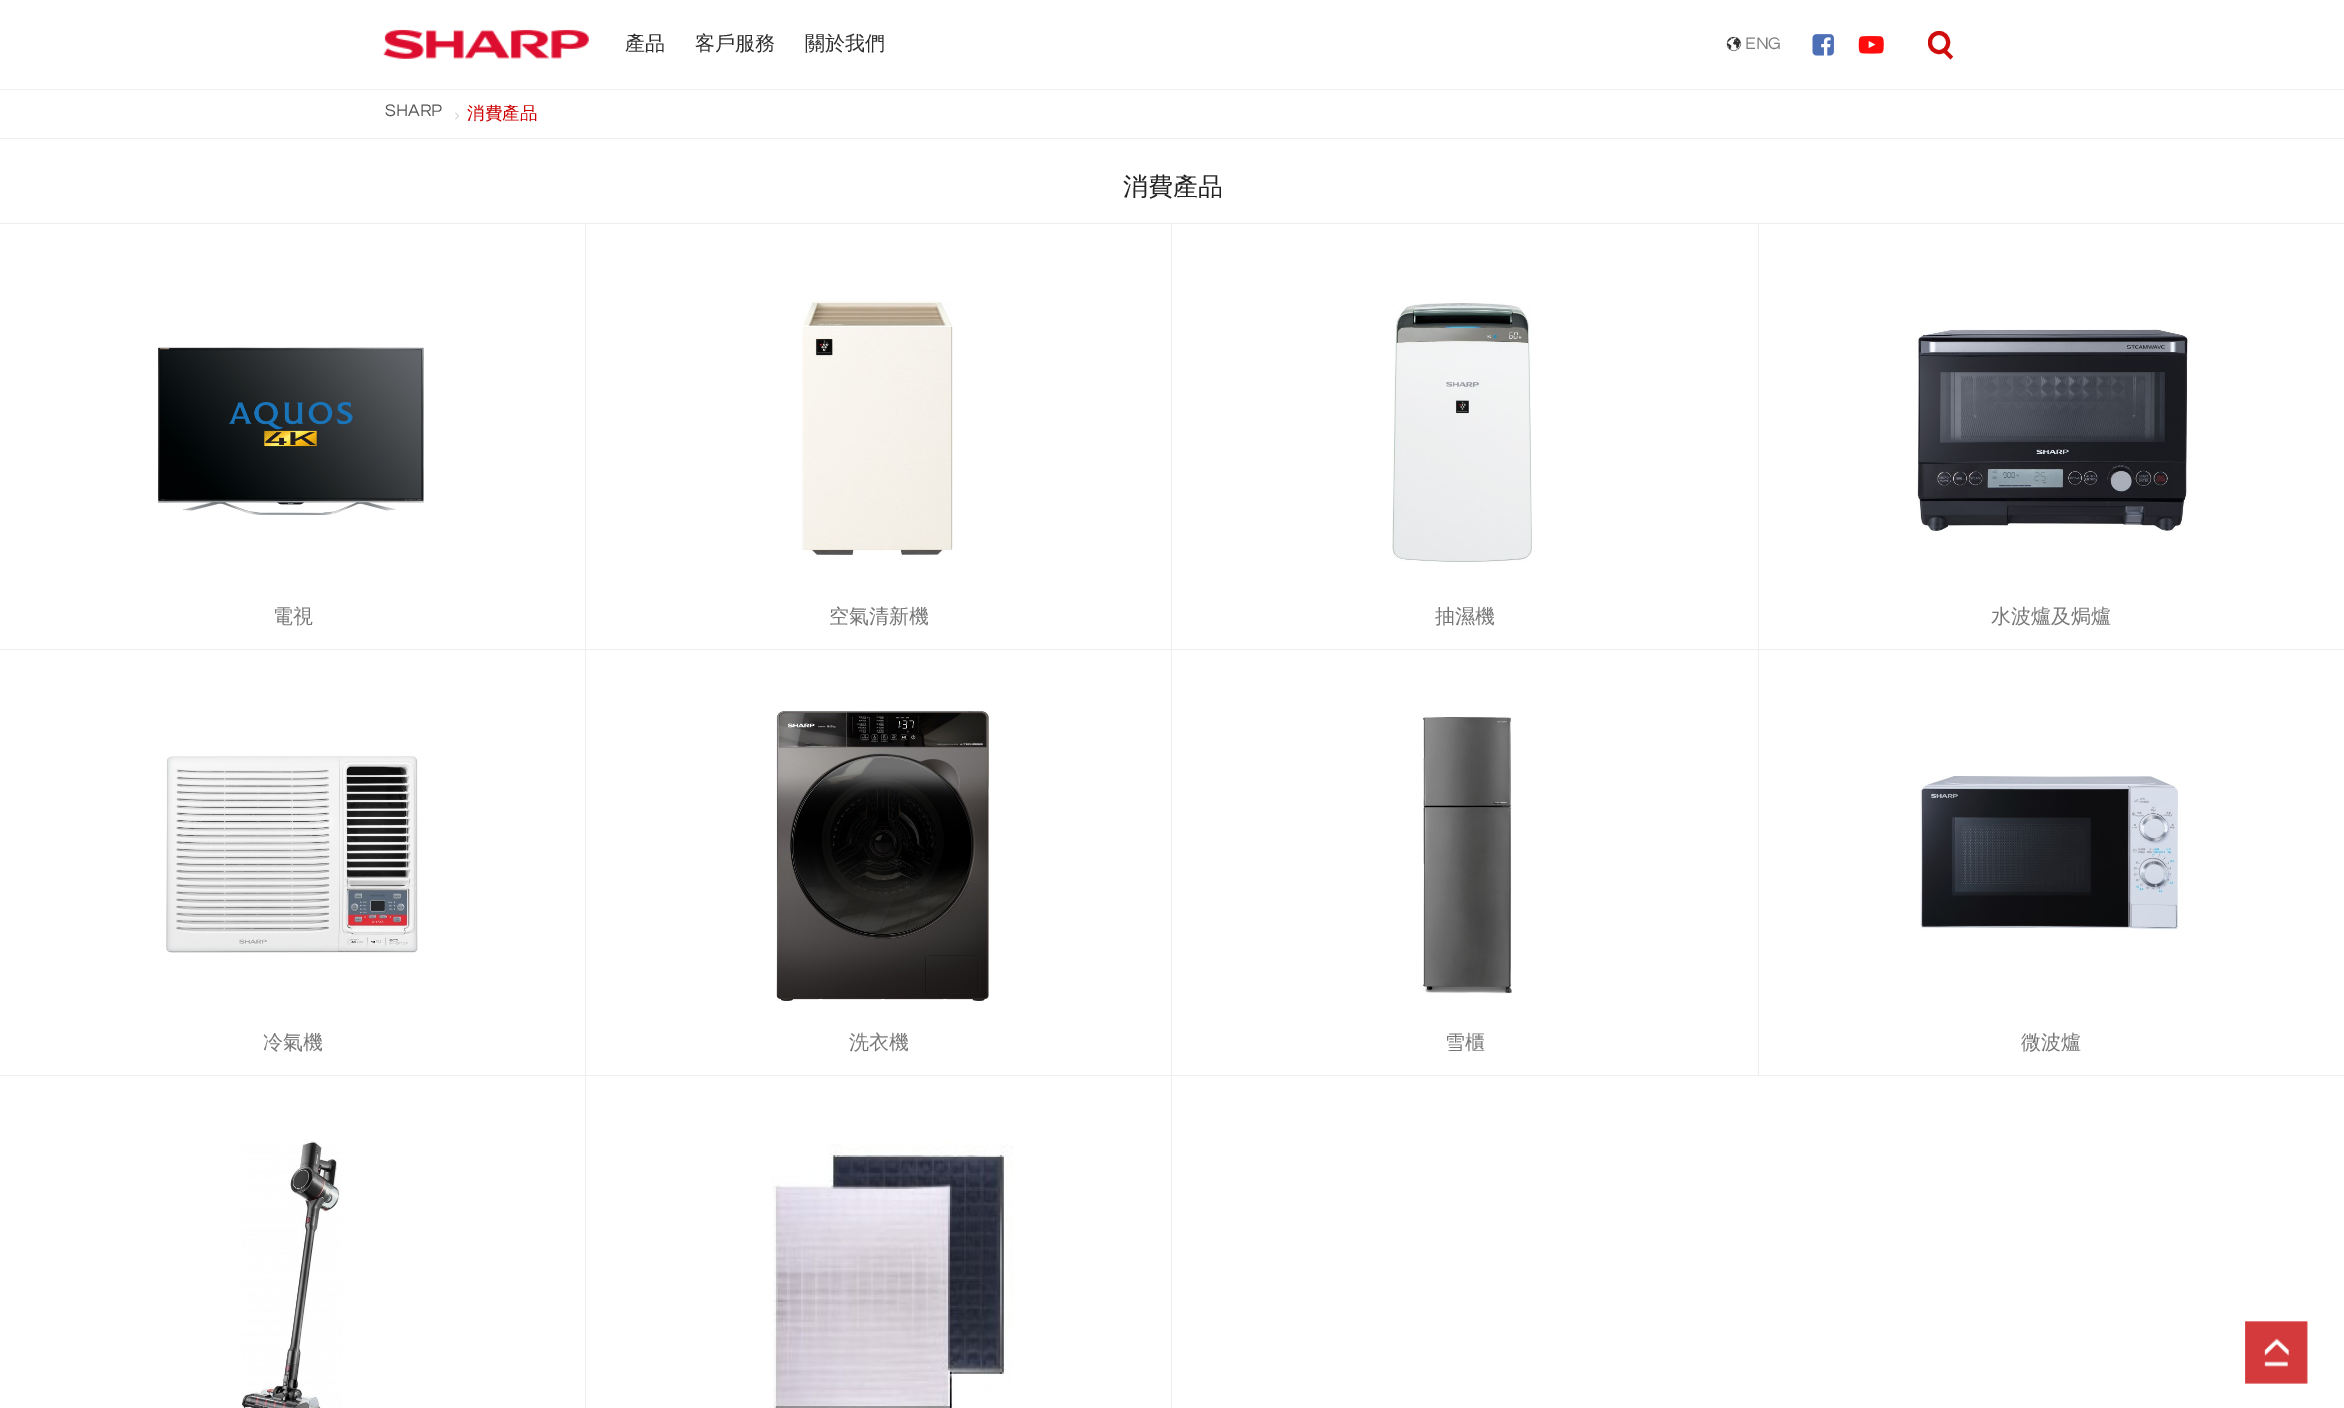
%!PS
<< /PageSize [2344 1408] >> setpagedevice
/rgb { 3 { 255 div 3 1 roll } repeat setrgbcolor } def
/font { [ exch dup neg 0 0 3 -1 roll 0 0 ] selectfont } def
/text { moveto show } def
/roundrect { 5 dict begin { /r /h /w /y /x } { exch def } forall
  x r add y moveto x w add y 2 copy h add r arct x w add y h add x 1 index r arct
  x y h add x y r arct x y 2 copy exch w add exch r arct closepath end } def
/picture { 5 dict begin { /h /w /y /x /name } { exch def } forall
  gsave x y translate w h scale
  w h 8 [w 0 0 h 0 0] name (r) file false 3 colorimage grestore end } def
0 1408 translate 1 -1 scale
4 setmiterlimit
255 255 255 rgb
0 0 2344 1408 rectfill
239 239 239 rgb
0 89 2344 1 rectfill
(img_01.rgb) 383 29 206 30 picture
(img_02.rgb) 1726 36 16 16 picture
(img_03.rgb) 1812 34 22 22 picture
(img_04.rgb) 1858 36 26 18 picture
207 13 13 rgb
4 setlinewidth
1930 33 18 19 9 roundrect stroke
1946 49.5 moveto 7 7 rlineto -2.5 3 rlineto -7.5 -7.5 rlineto closepath fill
238 238 238 rgb
0 138 2344 1 rectfill
(img_05.rgb) 455 112 4 8 picture
0 223 2344 1 rectfill
585 224 1 1184 rectfill
0 649 586 1 rectfill
(img_06.rgb) 157 347 267 168 picture
1171 224 1 1184 rectfill
586 649 587 1 rectfill
(img_07.rgb) 802 301 151 254 picture
1758 224 1 852 rectfill
1173 649 586 1 rectfill
(img_08.rgb) 1392 303 140 259 picture
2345 650 moveto -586 0 rlineto 0 -1 rlineto 585 0 rlineto closepath fill
(img_09.rgb) 1916 329 273 202 picture
0 1075 1759 1 rectfill
(img_10.rgb) 166 756 252 197 picture
(img_11.rgb) 776 710 214 291 picture
(img_12.rgb) 1423 716 89 278 picture
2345 1076 moveto -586 0 rlineto 0 -1 rlineto 585 0 rlineto closepath fill
(img_13.rgb) 1920 776 261 155 picture
(img_14.rgb) 242 1141 100 267 picture
(img_15.rgb) 771 1141 242 267 picture
(img_16.rgb) 2245 1321 63 63 picture
/WenQuanYiZenHei-Medium 20 font
45 45 45 rgb
(產品) 625 50 text
(客戶服務) 695 50 text
(關於我們) 805 50 text
/Questrial-Regular 17.5 font
126 126 126 rgb
(ENG) 1745 49 text
85 85 85 rgb
(SHARP) 385 116 text
/WenQuanYiZenHei-Medium 17.5 font
204 0 0 rgb
(消費產品) 467 119 text
/WenQuanYiZenHei-Medium 25 font
34 34 34 rgb
(消費產品) 1123 195 text
/WenQuanYiZenHei-Medium 20 font
119 119 119 rgb
(電視) 273 623 text
(空氣清新機) 829 623 text
(抽濕機) 1435 623 text
(水波爐及焗爐) 1991 623 text
(冷氣機) 263 1049 text
(洗衣機) 849 1049 text
(雪櫃) 1445 1049 text
(微波爐) 2021 1049 text
showpage
